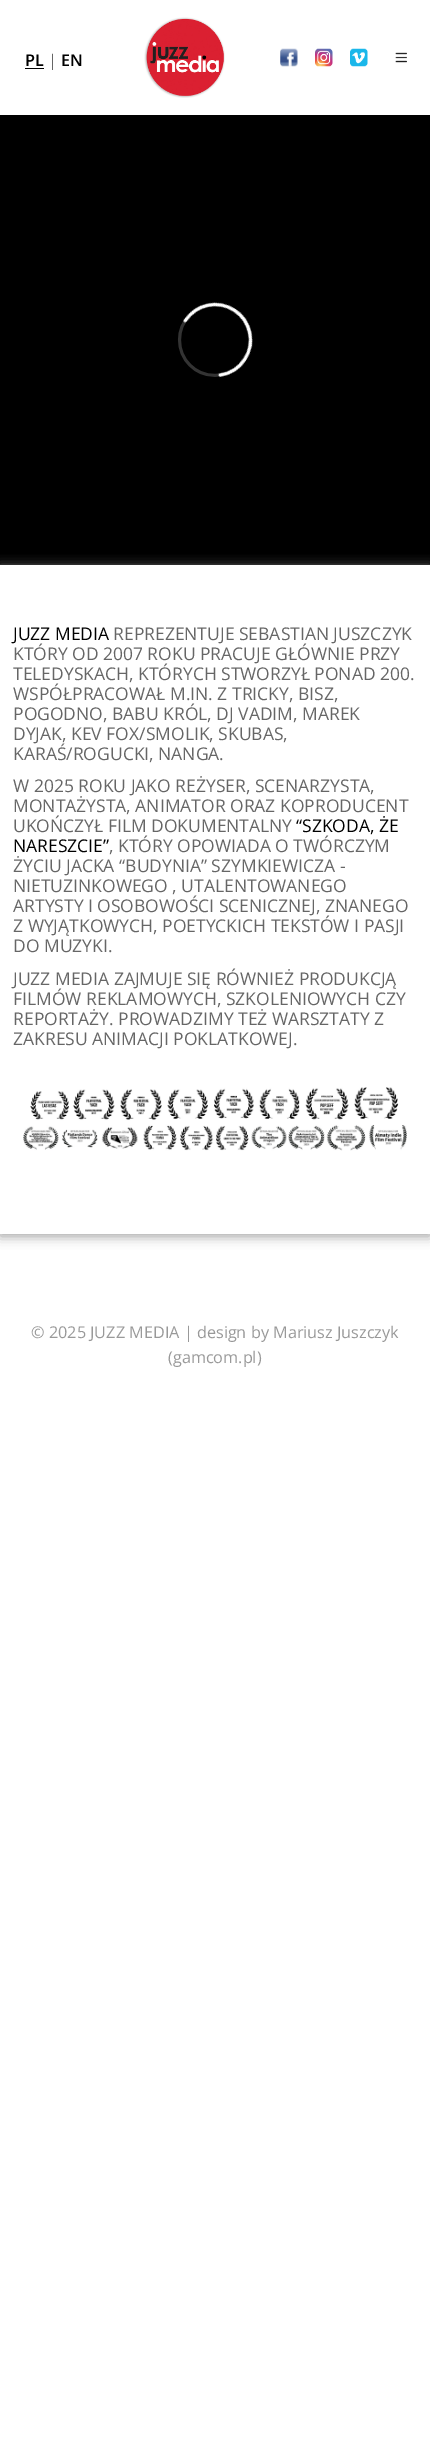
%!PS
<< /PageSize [430 2445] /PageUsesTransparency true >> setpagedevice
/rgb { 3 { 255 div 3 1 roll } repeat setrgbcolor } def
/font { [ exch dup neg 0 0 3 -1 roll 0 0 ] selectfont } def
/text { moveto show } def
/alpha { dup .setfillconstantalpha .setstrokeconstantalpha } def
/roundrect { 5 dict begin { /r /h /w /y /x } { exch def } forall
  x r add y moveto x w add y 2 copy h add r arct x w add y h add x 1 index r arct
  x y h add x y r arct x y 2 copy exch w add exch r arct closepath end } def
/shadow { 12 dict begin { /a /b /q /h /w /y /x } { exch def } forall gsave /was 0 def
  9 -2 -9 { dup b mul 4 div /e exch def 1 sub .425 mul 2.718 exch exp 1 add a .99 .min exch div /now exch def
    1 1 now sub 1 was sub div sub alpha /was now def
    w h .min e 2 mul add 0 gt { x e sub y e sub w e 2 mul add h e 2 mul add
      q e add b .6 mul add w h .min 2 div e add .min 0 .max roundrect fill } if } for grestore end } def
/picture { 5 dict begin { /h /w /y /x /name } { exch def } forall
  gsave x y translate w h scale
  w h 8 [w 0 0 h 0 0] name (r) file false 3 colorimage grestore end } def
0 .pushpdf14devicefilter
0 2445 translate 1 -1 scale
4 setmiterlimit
255 255 255 rgb
0 0 430 2445 rectfill
0 0 0 rgb
25 68 19 1 rectfill
(img_01.rgb) 144 17 81 81 picture
(img_02.rgb) 280 48 18 19 picture
(img_03.rgb) 315 48 18 19 picture
(img_04.rgb) 350 48 18 19 picture
(img_05.rgb) 395 52 12 11 picture
(img_06.rgb) 0 115 430 450 picture
153 153 153 rgb
0 568 430 668 0 6 1 shadow
255 255 255 rgb
0 565 430 669 rectfill
(img_07.rgb) 23 1087 384 64 picture
/OpenSans-SemiBold 16.25 font
0 0 0 rgb
(PL) 25 66 text
/OpenSans-Regular 16.25 font
102 102 102 rgb
(|) 48 66 text
/OpenSans-SemiBold 16.25 font
0 0 0 rgb
(EN) 61 66 text
/OpenSans-Regular 17.5 font
(JUZZ MEDIA) 13 640 text
102 102 102 rgb
(REPREZENTUJE SEBASTIAN JUSZCZYK) 113 640 text
(KTÓRY OD 2007 ROKU PRACUJE GŁÓWNIE PRZY) 13 660 text
(TELEDYSKACH, KTÓRYCH STWORZYŁ PONAD 200.) 13 680 text
(WSPÓŁPRACOWAŁ M.IN. Z TRICKY, BISZ,) 13 700 text
(POGODNO, BABU KRÓL, DJ VADIM, MAREK) 13 720 text
(DYJAK, KEV FOX/SMOLIK, SKUBAS,) 13 740 text
(KARAŚ/ROGUCKI, NANGA.) 13 760 text
(W 2025 ROKU JAKO REŻYSER, SCENARZYSTA,) 13 792 text
(MONTAŻYSTA, ANIMATOR ORAZ KOPRODUCENT) 13 812 text
(UKOŃCZYŁ FILM DOKUMENTALNY) 13 832 text
0 0 0 rgb
(“SZKODA, ŻE) 296 832 text
(NARESZCIE”) 13 852 text
102 102 102 rgb
(, KTÓRY OPOWIADA O TWÓRCZYM) 109 852 text
(ŻYCIU JACKA “BUDYNIA” SZYMKIEWICZA -) 13 872 text
(NIETUZINKOWEGO , UTALENTOWANEGO) 13 892 text
(ARTYSTY I OSOBOWOŚCI SCENICZNEJ, ZNANEGO) 13 912 text
(Z WYJĄTKOWYCH, POETYCKICH TEKSTÓW I PASJI) 13 932 text
(DO MUZYKI.) 13 952 text
(JUZZ MEDIA ZAJMUJE SIĘ RÓWNIEŻ PRODUKCJĄ) 13 985 text
(FILMÓW REKLAMOWYCH, SZKOLENIOWYCH CZY) 13 1005 text
(REPORTAŻY. PROWADZIMY TEŻ WARSZTATY Z) 13 1025 text
(ZAKRESU ANIMACJI POKLATKOWEJ.) 13 1045 text
/OpenSans-Regular 16.25 font
153 153 153 rgb
(© 2025 JUZZ MEDIA | design by Mariusz Juszczyk) 31 1338 text
(\(gamcom.pl\)) 168 1363 text
.poppdf14devicefilter showpage
